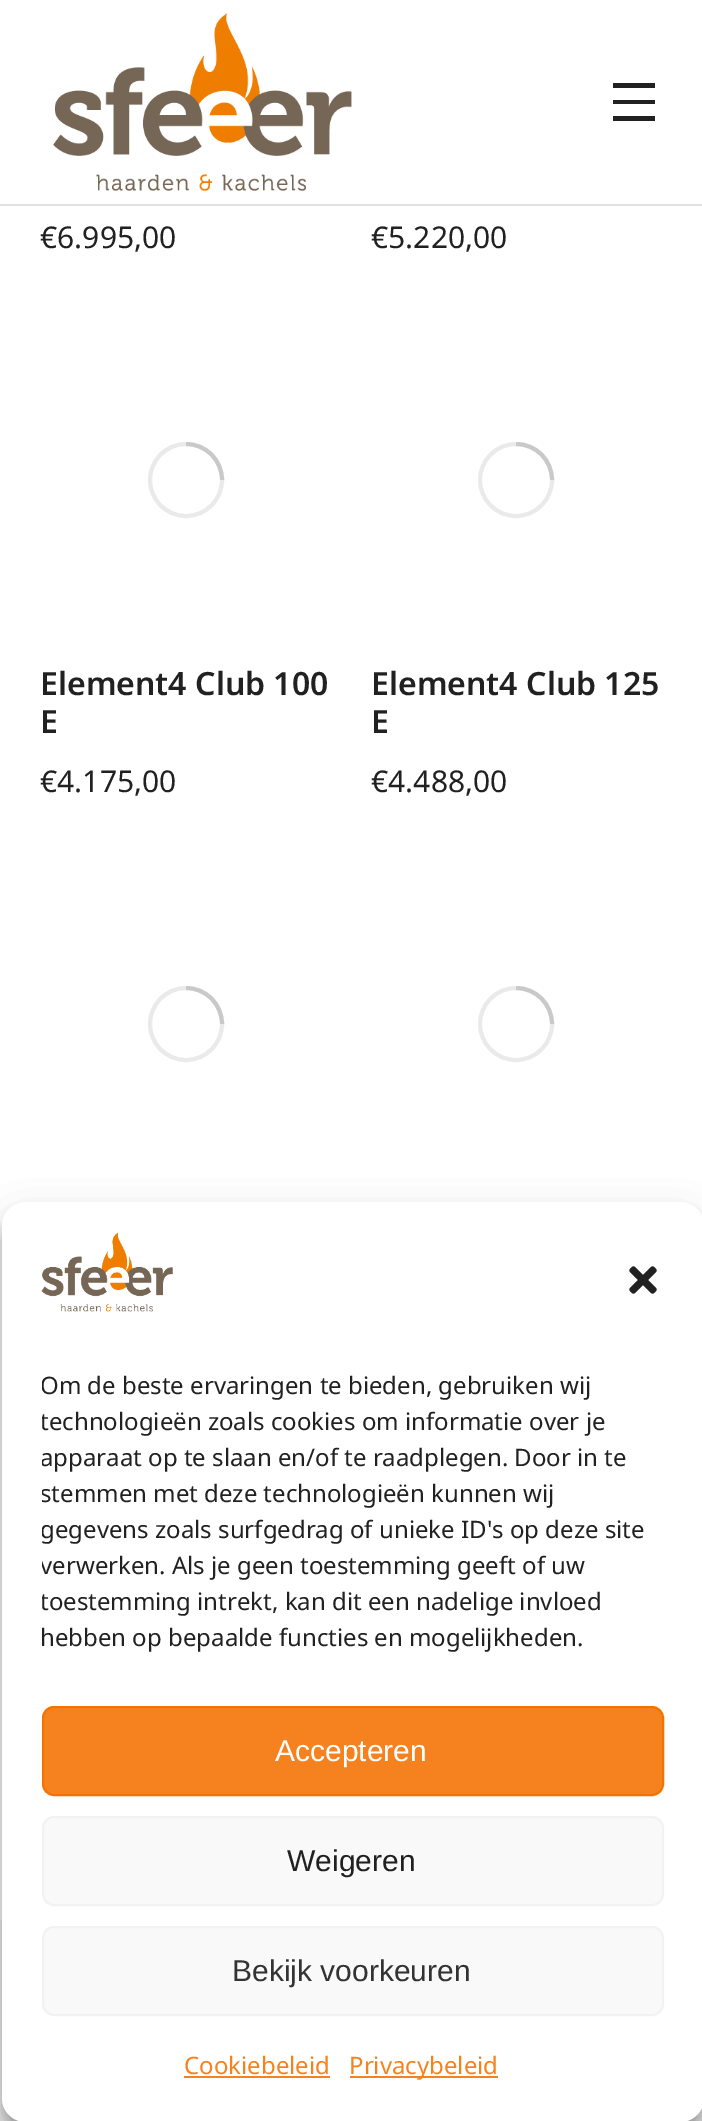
%!PS
<< /PageSize [702 2121] /PageUsesTransparency true >> setpagedevice
/rgb { 3 { 255 div 3 1 roll } repeat setrgbcolor } def
/font { [ exch dup neg 0 0 3 -1 roll 0 0 ] selectfont } def
/text { moveto show } def
/alpha { dup .setfillconstantalpha .setstrokeconstantalpha } def
/circle { newpath 0 360 arc closepath } def
/roundrect { 5 dict begin { /r /h /w /y /x } { exch def } forall
  x r add y moveto x w add y 2 copy h add r arct x w add y h add x 1 index r arct
  x y h add x y r arct x y 2 copy exch w add exch r arct closepath end } def
/shadow { 12 dict begin { /a /b /q /h /w /y /x } { exch def } forall gsave /was 0 def
  9 -2 -9 { dup b mul 4 div /e exch def 1 sub .425 mul 2.718 exch exp 1 add a .99 .min exch div /now exch def
    1 1 now sub 1 was sub div sub alpha /was now def
    w h .min e 2 mul add 0 gt { x e sub y e sub w e 2 mul add h e 2 mul add
      q e add b .6 mul add w h .min 2 div e add .min 0 .max roundrect fill } if } for grestore end } def
/picture { 5 dict begin { /h /w /y /x /name } { exch def } forall
  gsave x y translate w h scale
  w h 8 [w 0 0 h 0 0] name (r) file false 3 colorimage grestore end } def
0 .pushpdf14devicefilter
0 2121 translate 1 -1 scale
4 setmiterlimit
255 255 255 rgb
0 0 702 2121 rectfill
225 225 225 rgb
0 204 702 2 rectfill
(img_01.rgb) 53 13 299 178 picture
33 33 33 rgb
613 83 moveto 42 0 rlineto 0 5 rlineto -42 0 rlineto closepath 613 100 moveto 42 0 rlineto 0 4 rlineto -42 0 rlineto closepath 613 116 moveto 42 0 rlineto 0 5 rlineto -42 0 rlineto closepath fill
234 234 234 rgb
4 setlinewidth
186 480 36 circle stroke
0.25 alpha
102 102 102 rgb
222 480 moveto 0 -20 -16 -36 -36 -36 rcurveto stroke
1 alpha
234 234 234 rgb
516 480 36 circle stroke
0.25 alpha
102 102 102 rgb
552 480 moveto 0 -20 -16 -36 -36 -36 rcurveto stroke
1 alpha
234 234 234 rgb
186 1024 36 circle stroke
0.25 alpha
102 102 102 rgb
222 1024 moveto 0 -20 -16 -36 -36 -36 rcurveto stroke
1 alpha
234 234 234 rgb
516 1024 36 circle stroke
0.25 alpha
102 102 102 rgb
552 1024 moveto 0 -20 -16 -36 -36 -36 rcurveto stroke
1 alpha
244 244 244 rgb
0 1920 702 201 rectfill
0 0 0 rgb
2 1214 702 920 24 6 0.23 shadow
2 1222 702 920 24 20 0.19 shadow
255 255 255 rgb
2 1202 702 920 24 roundrect fill
(img_02.rgb) 41 1232 132 80 picture
(img_03.rgb) 629 1266 28 28 picture
245 130 31 rgb
43 1707 620 88 11 roundrect gsave fill grestore
244 114 0 rgb
2 setlinewidth
stroke
249 249 249 rgb
43 1817 620 88 11 roundrect gsave fill grestore
242 242 242 rgb
stroke
249 249 249 rgb
43 1927 620 88 11 roundrect gsave fill grestore
242 242 242 rgb
stroke
245 130 31 rgb
184 2076 146 2 rectfill
350 2076 148 2 rectfill
/NotoSans-Regular 30 font
33 33 33 rgb
(€6.995,00) 40 248 text
(€5.220,00) 371 248 text
/NotoSans-SemiBold 32 font
(Element4 Club 100) 40 695 text
(E) 40 733 text
/NotoSans-Regular 30 font
(€4.175,00) 40 792 text
/NotoSans-SemiBold 32 font
(Element4 Club 125) 371 695 text
(E) 371 733 text
/NotoSans-Regular 30 font
(€4.488,00) 371 792 text
gsave
42 1368 622 298 rectclip
/NotoSans-Regular 24 font
(Om de beste ervaringen te bieden, gebruiken wij) 40 1394 text
(technologieën zoals cookies om informatie over je) 40 1430 text
(apparaat op te slaan en/of te raadplegen. Door in te) 40 1466 text
(stemmen met deze technologieën kunnen wij) 40 1502 text
(gegevens zoals surfgedrag of unieke ID's op deze site) 40 1538 text
(verwerken. Als je geen toestemming geeft of uw) 40 1574 text
(toestemming intrekt, kan dit een nadelige invloed) 40 1610 text
grestore
/NotoSans-Regular 24 font
(hebben op bepaalde functies en mogelijkheden.) 40 1646 text
/LiberationSans-Regular 30 font
255 255 255 rgb
(Accepteren) 275 1761 text
33 33 33 rgb
(Weigeren) 287 1871 text
51 51 51 rgb
(Bekijk voorkeuren) 232 1981 text
/NotoSans-Regular 24 font
245 130 31 rgb
(Cookiebeleid) 184 2074 text
(Privacybeleid) 349 2074 text
.poppdf14devicefilter showpage
